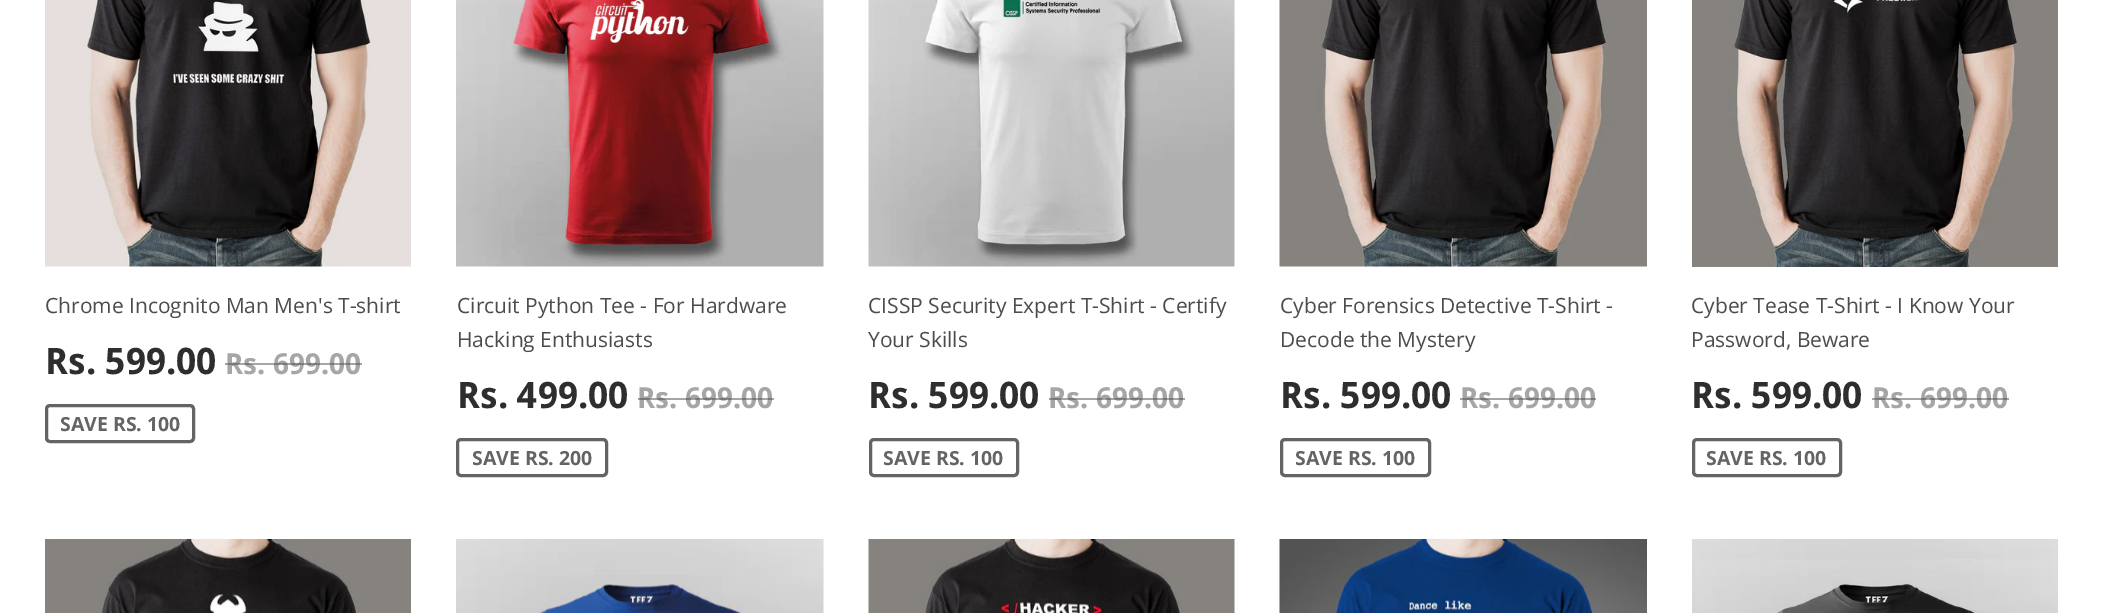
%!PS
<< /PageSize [2102 613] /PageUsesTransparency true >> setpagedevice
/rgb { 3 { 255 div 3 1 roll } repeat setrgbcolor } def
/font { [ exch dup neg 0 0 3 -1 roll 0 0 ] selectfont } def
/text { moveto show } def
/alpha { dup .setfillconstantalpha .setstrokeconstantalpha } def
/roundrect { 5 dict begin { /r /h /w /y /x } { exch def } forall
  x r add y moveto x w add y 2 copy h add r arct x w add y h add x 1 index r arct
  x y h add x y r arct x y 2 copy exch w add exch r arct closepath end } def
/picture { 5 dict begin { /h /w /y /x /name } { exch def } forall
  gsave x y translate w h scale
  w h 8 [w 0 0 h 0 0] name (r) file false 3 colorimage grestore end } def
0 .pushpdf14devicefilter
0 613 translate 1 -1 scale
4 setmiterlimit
255 255 255 rgb
0 0 2102 613 rectfill
(img_01.rgb) 45 0 366 267 picture
101 100 98 rgb
3 setlinewidth
46.5 405.5 147 36 3.5 roundrect stroke
(img_02.rgb) 456 0 368 267 picture
457.5 439.5 149 36 3.5 roundrect stroke
(img_03.rgb) 868 0 367 267 picture
870.5 439.5 147 36 3.5 roundrect stroke
(img_04.rgb) 1279 0 368 267 picture
1281.5 439.5 148 36 3.5 roundrect stroke
(img_05.rgb) 1692 0 366 267 picture
1693.5 439.5 147 36 3.5 roundrect stroke
(img_06.rgb) 45 539 366 74 picture
(img_07.rgb) 456 539 368 74 picture
(img_08.rgb) 868 539 367 74 picture
(img_09.rgb) 1279 539 368 74 picture
(img_10.rgb) 1692 539 366 74 picture
/OpenSans-Regular 21 font
76 76 76 rgb
(Chrome Incognito Man Men's T-shirt) 45 313 text
/DroidSans-Bold 36.5 font
47 46 46 rgb
(Rs. 599.00) 45 374 text
/DroidSans-Bold 29 font
166 166 166 rgb
(Rs. 699.00) 225 374 text
0.5 alpha
76 76 76 rgb
225 363 137 2 rectfill
/OpenSans-Bold 19.5 font
1 alpha
101 100 98 rgb
(SAVE RS. 100) 60 431 text
/OpenSans-Regular 21 font
76 76 76 rgb
(Circuit Python Tee - For Hardware) 457 313 text
(Hacking Enthusiasts) 457 347 text
/DroidSans-Bold 36.5 font
47 46 46 rgb
(Rs. 499.00) 457 408 text
/DroidSans-Bold 29 font
166 166 166 rgb
(Rs. 699.00) 637 408 text
0.5 alpha
76 76 76 rgb
638 398 136 2 rectfill
/OpenSans-Bold 19.5 font
1 alpha
101 100 98 rgb
(SAVE RS. 200) 472 465 text
/OpenSans-Regular 21 font
76 76 76 rgb
(CISSP Security Expert T-Shirt - Certify) 868 313 text
(Your Skills) 868 347 text
/DroidSans-Bold 36.5 font
47 46 46 rgb
(Rs. 599.00) 868 408 text
/DroidSans-Bold 29 font
166 166 166 rgb
(Rs. 699.00) 1048 408 text
0.5 alpha
76 76 76 rgb
1049 398 136 2 rectfill
/OpenSans-Bold 19.5 font
1 alpha
101 100 98 rgb
(SAVE RS. 100) 883 465 text
/OpenSans-Regular 21 font
76 76 76 rgb
(Cyber Forensics Detective T-Shirt -) 1280 313 text
(Decode the Mystery) 1280 347 text
/DroidSans-Bold 36.5 font
47 46 46 rgb
(Rs. 599.00) 1280 408 text
/DroidSans-Bold 29 font
166 166 166 rgb
(Rs. 699.00) 1460 408 text
0.5 alpha
76 76 76 rgb
1460 398 136 2 rectfill
/OpenSans-Bold 19.5 font
1 alpha
101 100 98 rgb
(SAVE RS. 100) 1295 465 text
/OpenSans-Regular 21 font
76 76 76 rgb
(Cyber Tease T-Shirt - I Know Your) 1691 313 text
(Password, Beware) 1691 347 text
/DroidSans-Bold 36.5 font
47 46 46 rgb
(Rs. 599.00) 1691 408 text
/DroidSans-Bold 29 font
166 166 166 rgb
(Rs. 699.00) 1872 408 text
0.5 alpha
76 76 76 rgb
1872 398 137 2 rectfill
/OpenSans-Bold 19.5 font
1 alpha
101 100 98 rgb
(SAVE RS. 100) 1706 465 text
.poppdf14devicefilter showpage
